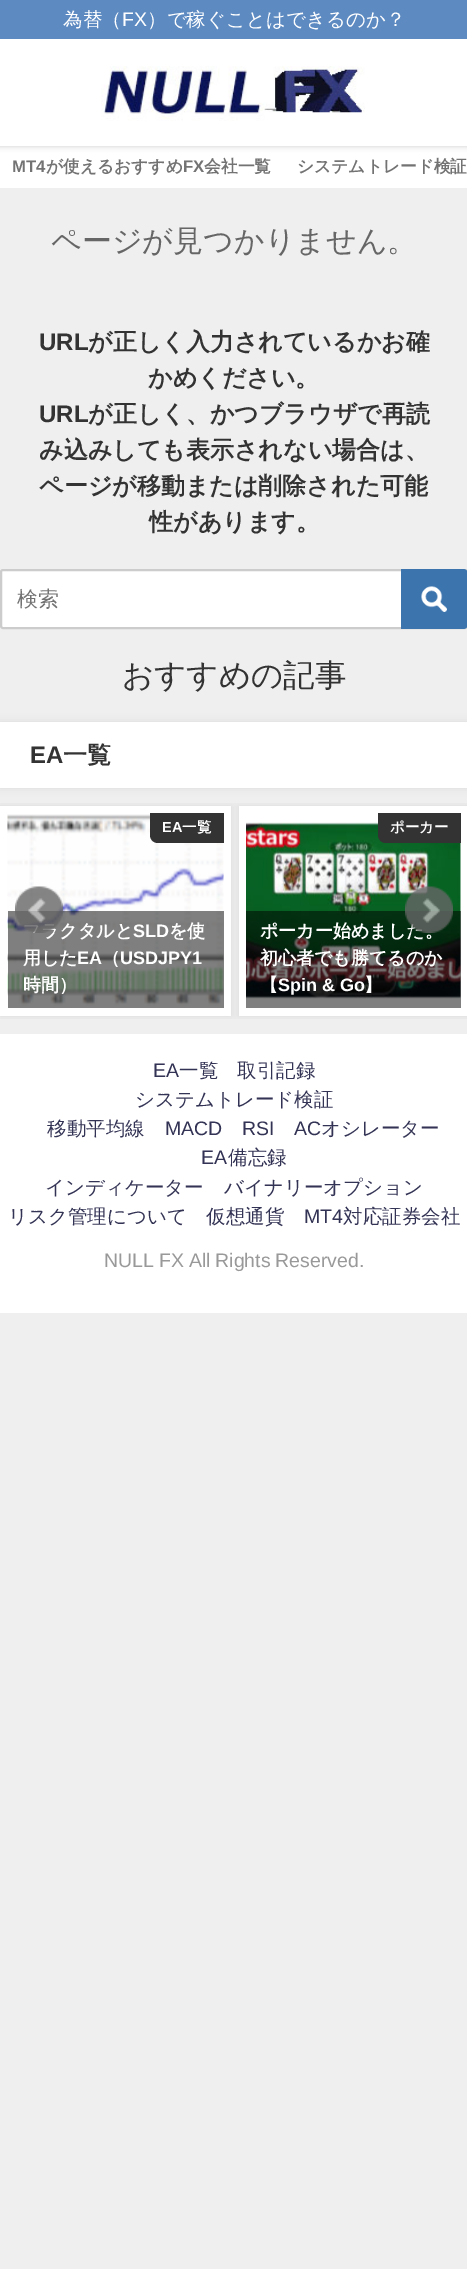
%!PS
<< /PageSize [467 2269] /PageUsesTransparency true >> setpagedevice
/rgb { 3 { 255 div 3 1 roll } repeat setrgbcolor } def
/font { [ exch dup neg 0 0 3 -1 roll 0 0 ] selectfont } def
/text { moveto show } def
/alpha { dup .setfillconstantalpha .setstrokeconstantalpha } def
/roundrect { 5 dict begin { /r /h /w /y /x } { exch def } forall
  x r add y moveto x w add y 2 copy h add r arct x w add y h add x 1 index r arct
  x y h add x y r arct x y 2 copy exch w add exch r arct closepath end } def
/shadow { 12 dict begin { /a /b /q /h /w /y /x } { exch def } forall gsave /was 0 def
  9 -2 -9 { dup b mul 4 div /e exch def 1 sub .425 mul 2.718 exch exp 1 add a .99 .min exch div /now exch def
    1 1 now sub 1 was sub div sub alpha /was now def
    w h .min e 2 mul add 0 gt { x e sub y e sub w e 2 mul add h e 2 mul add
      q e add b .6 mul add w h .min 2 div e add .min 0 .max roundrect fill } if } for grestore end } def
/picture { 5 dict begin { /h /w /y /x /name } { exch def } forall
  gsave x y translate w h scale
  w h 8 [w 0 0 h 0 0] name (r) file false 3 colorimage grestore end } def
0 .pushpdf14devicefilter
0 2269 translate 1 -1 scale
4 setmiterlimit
239 239 239 rgb
0 0 467 2269 rectfill
255 255 255 rgb
0 146 467 42 rectfill
0 0 0 rgb
0 0 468 146 0 3 0.2 shadow
255 255 255 rgb
0 39 467 107 rectfill
93 138 193 rgb
0 0 467 39 rectfill
(img_01.rgb) 101 66 264 55 picture
255 255 255 rgb
1 570 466 58 2 roundrect gsave fill grestore
204 204 204 rgb
2 setlinewidth
stroke
60 116 173 rgb
401 569 moveto 62 0 rlineto 3 0 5 2 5 5 rcurveto 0 50 rlineto 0 3 -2 5 -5 5 rcurveto -62 0 rlineto closepath fill
(img_02.rgb) 421 586 26 26 picture
150 150 150 rgb
0 722 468 66 0 4 0.2 shadow
255 255 255 rgb
0 722 467 66 rectfill
gsave
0 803 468 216 rectclip
150 150 150 rgb
0 806 231 210 0 4 0.2 shadow
grestore
0 806 231 210 rectfill
(img_03.rgb) 7 814 217 192 picture
51 51 51 rgb
150 813 moveto 74 0 rlineto 0 30 rlineto -66 0 rlineto -4.5 0 -8 -3.5 -8 -8 rcurveto closepath fill
0.5 alpha
0 0 0 rgb
8 911 216 97 rectfill
gsave
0 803 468 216 rectclip
1 alpha
150 150 150 rgb
239 806 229 210 0 4 0.2 shadow
grestore
1 alpha
255 255 255 rgb
239 806 228 210 rectfill
(img_04.rgb) 246 822 215 177 picture
51 51 51 rgb
378 813 moveto 83 0 rlineto 0 30 rlineto -75 0 rlineto -4.5 0 -8 -3.5 -8 -8 rcurveto closepath fill
0.5 alpha
0 0 0 rgb
246 911 215 97 rectfill
1 alpha
255 255 255 rgb
0 1034 467 279 rectfill
/WenQuanYiZenHei-Medium 19.5 font
(為替（) 63 26 text
/LiberationSans-Regular 19.5 font
(FX) 122 26 text
/WenQuanYiZenHei-Medium 19.5 font
(）で稼ぐことはできるのか？) 147 26 text
/LiberationSans-Bold 16.75 font
115 115 115 rgb
(MT4) 12 172 text
/WenQuanYiZenHei-Bold 16.75 font
(が使えるおすすめ) 46 172 text
/LiberationSans-Bold 16.75 font
(FX) 183 172 text
/WenQuanYiZenHei-Bold 16.75 font
(会社一覧) 204 172 text
(システムトレード検証) 297 172 text
/WenQuanYiZenHei-Medium 30 font
102 102 102 rgb
(ページが見つかりません。) 51 251 text
/LiberationSans-Bold 24 font
51 51 51 rgb
(URL) 39 350 text
/WenQuanYiZenHei-Bold 24 font
(が正しく入力されているかお確) 88 350 text
(かめください。) 148 386 text
/LiberationSans-Bold 24 font
(URL) 39 422 text
/WenQuanYiZenHei-Bold 24 font
(が正しく、かつブラウザで再読) 88 422 text
(み込みしても表示されない場合は、) 39 458 text
(ページが移動または削除された可能) 39 494 text
(性があります。) 149 530 text
/WenQuanYiZenHei-Medium 21 font
115 115 115 rgb
(検索) 17 606 text
/WenQuanYiZenHei-Medium 31.5 font
51 51 51 rgb
(おすすめの記事) 122 686 text
/LiberationSans-Bold 24 font
(EA) 30 763 text
/WenQuanYiZenHei-Bold 24 font
(一覧) 63 763 text
/LiberationSans-Bold 14.5 font
255 255 255 rgb
(EA) 162 832 text
/WenQuanYiZenHei-Bold 14.5 font
(一覧) 182 832 text
/WenQuanYiZenHei-Bold 18 font
(ラクタルと) 41 937 text
/LiberationSans-Bold 18 font
(SLD) 133 937 text
/WenQuanYiZenHei-Bold 18 font
(を使) 169 937 text
(用した) 23 964 text
/LiberationSans-Bold 18 font
(EA) 77 964 text
/WenQuanYiZenHei-Bold 18 font
(（) 102 964 text
/LiberationSans-Bold 18 font
(USDJPY1) 120 964 text
/WenQuanYiZenHei-Bold 18 font
(時間）) 23 991 text
/WenQuanYiZenHei-Bold 14.5 font
(ポーカー) 390 832 text
/WenQuanYiZenHei-Bold 18 font
(ポーカー始めました。) 260 937 text
(初心者でも勝てるのか) 260 964 text
(【) 260 991 text
/LiberationSans-Bold 18 font
(Spin & Go) 278 991 text
/WenQuanYiZenHei-Bold 18 font
(】) 364 991 text
(img_05.rgb) 15 886 48 47 picture
(img_06.rgb) 405 886 48 47 picture
/LiberationSans-Regular 19.5 font
51 51 85 rgb
(EA) 153 1077 text
/WenQuanYiZenHei-Medium 19.5 font
(一覧) 179 1077 text
(取引記録) 237 1077 text
(システムトレード検証) 135 1106 text
(移動平均線) 47 1135 text
/LiberationSans-Regular 19.5 font
(MACD) 165 1135 text
(RSI) 242 1135 text
(AC) 294 1135 text
/WenQuanYiZenHei-Medium 19.5 font
(オシレーター) 321 1135 text
/LiberationSans-Regular 19.5 font
(EA) 201 1164 text
/WenQuanYiZenHei-Medium 19.5 font
(備忘録) 228 1164 text
(インディケーター) 45 1194 text
(バイナリーオプション) 224 1194 text
(リスク管理について) 8 1223 text
(仮想通貨) 206 1223 text
/LiberationSans-Regular 19.5 font
(MT4) 304 1223 text
/WenQuanYiZenHei-Medium 19.5 font
(対応証券会社) 343 1223 text
/LiberationSans-Regular 19.5 font
153 153 153 rgb
104 1267 moveto -0.5 0 32 (NULL FX All Rights Reserved.) widthshow
.poppdf14devicefilter showpage
